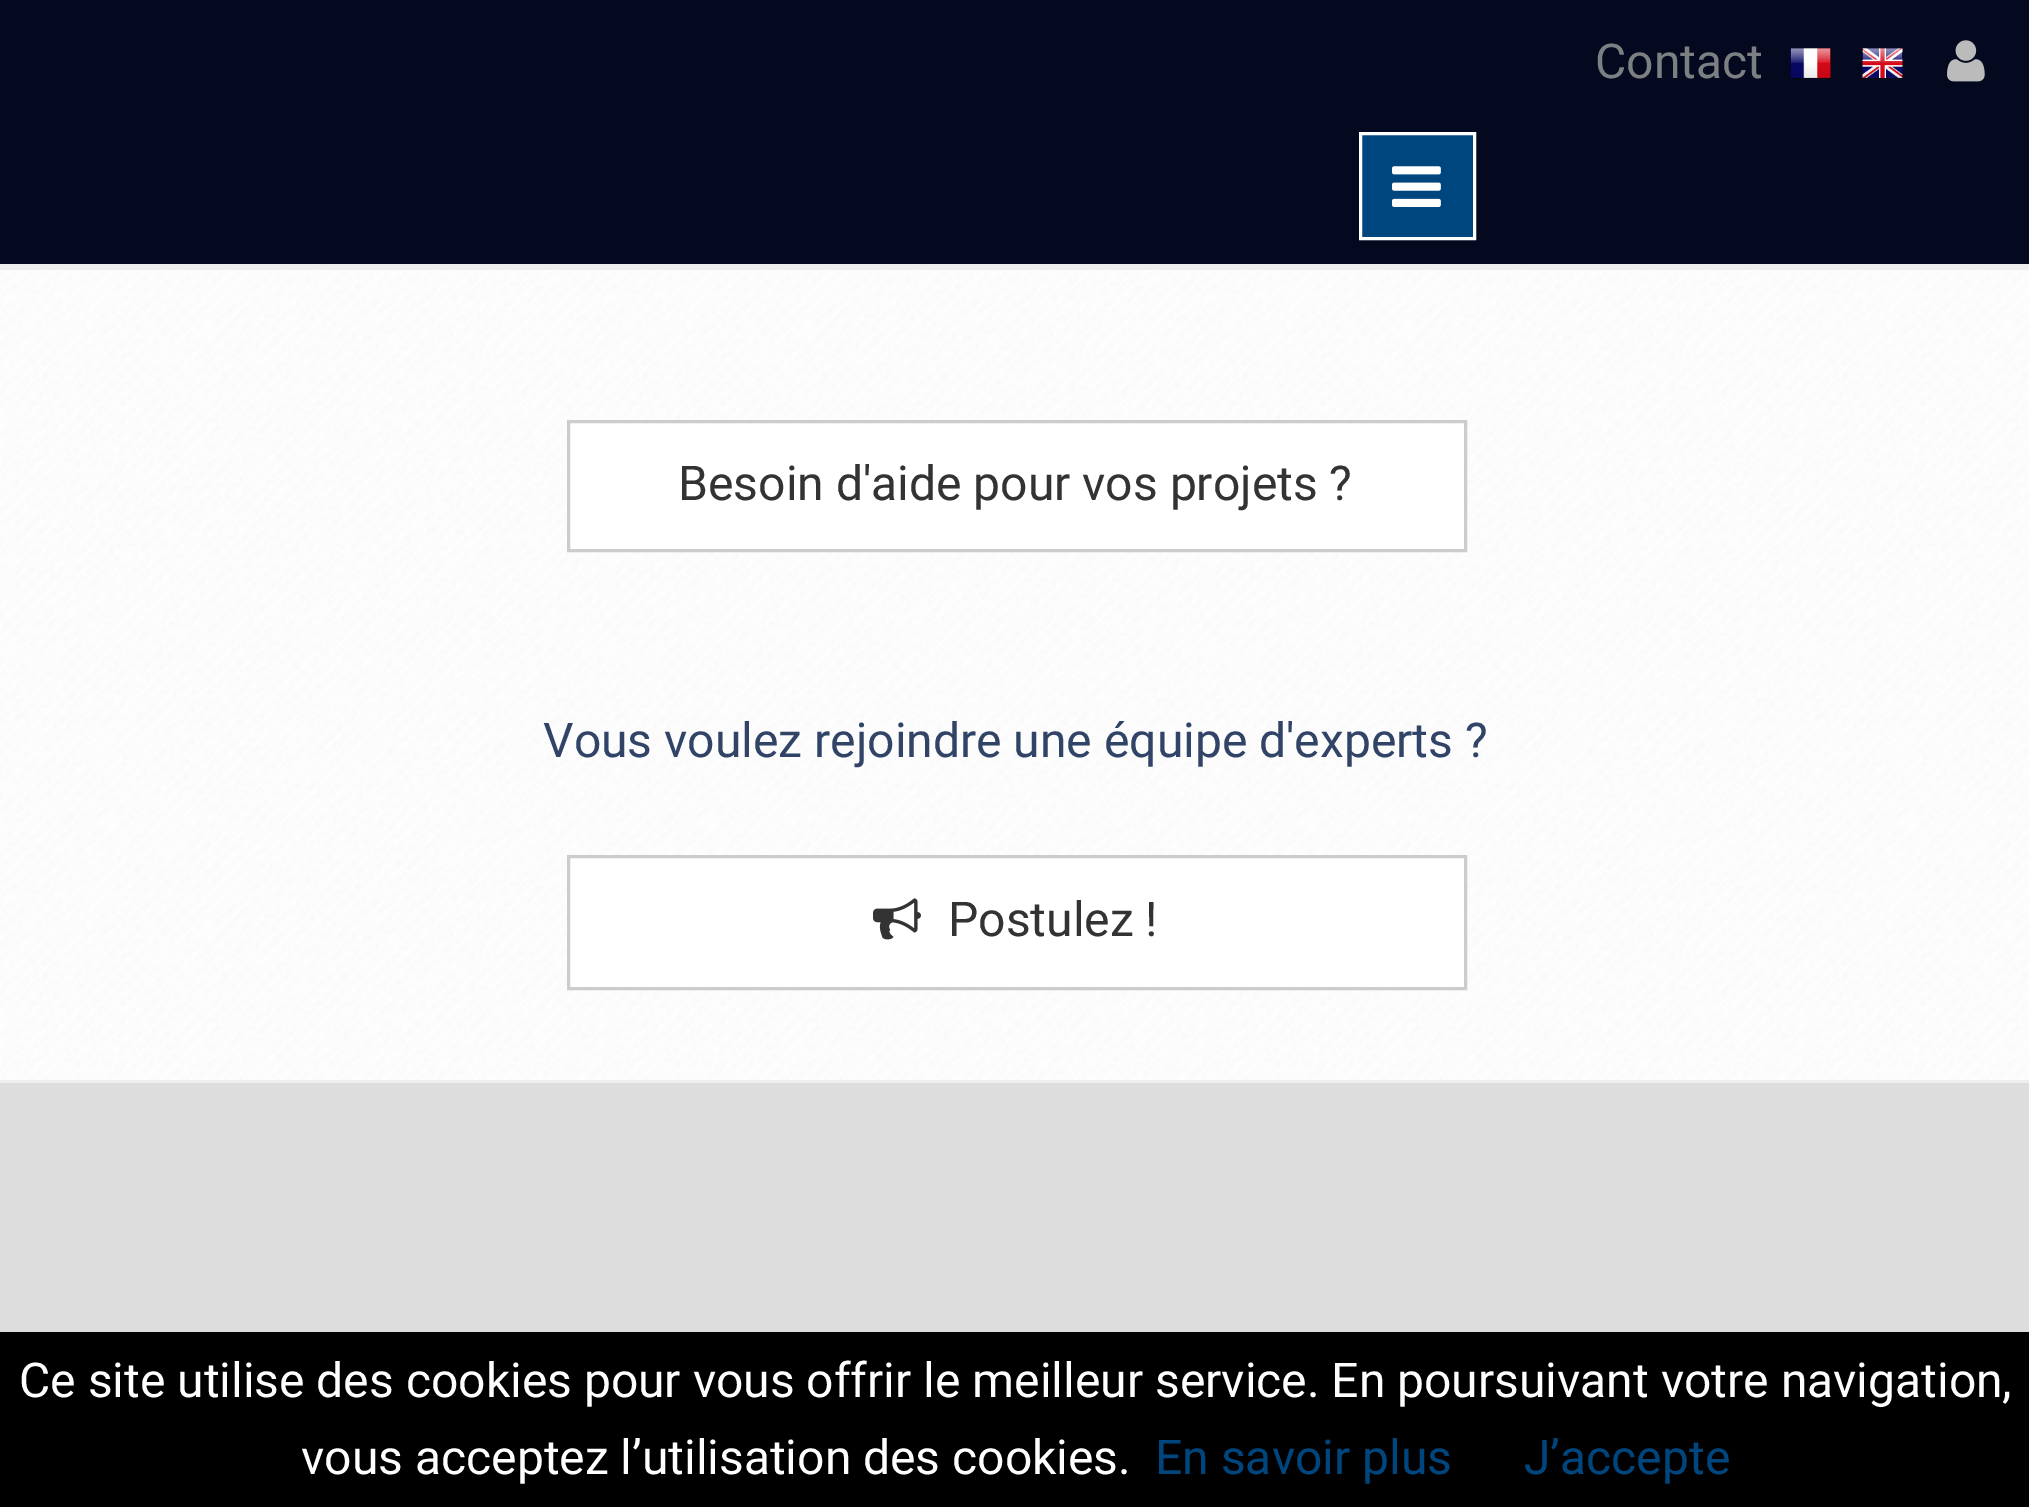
%!PS
<< /PageSize [2029 1507] >> setpagedevice
/rgb { 3 { 255 div 3 1 roll } repeat setrgbcolor } def
/font { [ exch dup neg 0 0 3 -1 roll 0 0 ] selectfont } def
/text { moveto show } def
/picture { 5 dict begin { /h /w /y /x /name } { exch def } forall
  gsave x y translate w h scale
  w h 8 [w 0 0 h 0 0] name (r) file false 3 colorimage grestore end } def
0 1507 translate 1 -1 scale
4 setmiterlimit
221 221 221 rgb
0 0 2029 1507 rectfill
4 9 31 rgb
0 0 2029 264 rectfill
238 238 238 rgb
0 264 2029 6 rectfill
(img_01.rgb) 1790 48 41 31 picture
(img_02.rgb) 1862 48 41 31 picture
(img_03.rgb) 1947 40 38 42 picture
0 70 126 rgb
1360.5 133.5 moveto 114 0 rlineto 0 105 rlineto -114 0 rlineto closepath gsave fill grestore
255 255 255 rgb
3 setlinewidth
stroke
(img_04.rgb) 1392 166 49 41 picture
(img_05.rgb) 0 270 2029 810 picture
238 238 238 rgb
0 1080 2029 3 rectfill
255 255 255 rgb
568.5 421.5 moveto 897 0 rlineto 0 129 rlineto -897 0 rlineto closepath gsave fill grestore
204 204 204 rgb
stroke
255 255 255 rgb
568.5 856.5 moveto 897 0 rlineto 0 132 rlineto -897 0 rlineto closepath gsave fill grestore
204 204 204 rgb
stroke
(img_06.rgb) 873 898 48 42 picture
0 0 0 rgb
0 1332 2029 175 rectfill
/Roboto-Regular 48 font
124 128 130 rgb
(Contact) 1595 78 text
51 51 51 rgb
(Besoin d'aide pour vos projets ?) 678 500 text
49 68 103 rgb
(Vous voulez rejoindre une équipe d'experts ?) 543 757 text
51 51 51 rgb
(Postulez !) 948 936 text
255 255 255 rgb
(Ce site utilise des cookies pour vous offrir le meilleur service. En poursuivant votre navigation,) 19 1397 text
(vous acceptez l’utilisation des cookies.) 301 1474 text
0 70 126 rgb
(En savoir plus) 1155 1474 text
(J’accepte) 1524 1474 text
showpage
